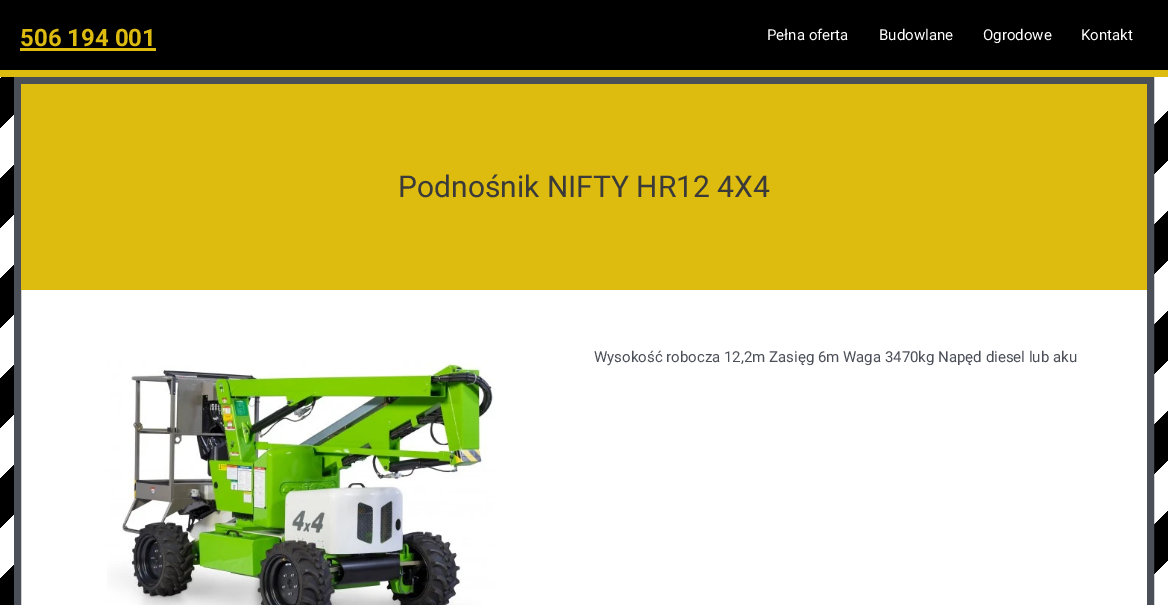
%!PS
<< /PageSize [1168 605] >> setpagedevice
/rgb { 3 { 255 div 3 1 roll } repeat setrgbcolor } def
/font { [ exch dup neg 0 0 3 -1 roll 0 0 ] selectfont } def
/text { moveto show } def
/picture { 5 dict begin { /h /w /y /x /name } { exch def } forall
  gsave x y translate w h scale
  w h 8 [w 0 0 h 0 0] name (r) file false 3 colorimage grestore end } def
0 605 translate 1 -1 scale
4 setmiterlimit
255 255 255 rgb
0 0 1168 605 rectfill
0 0 0 rgb
0 0 1168 70 rectfill
221 187 15 rgb
0 70 1168 7 rectfill
20 48 136 3 rectfill
(img_01.rgb) 0 77 1168 528 picture
255 255 255 rgb
21 290 1126 315 rectfill
75 79 88 rgb
7 setlinewidth
17.5 80.5 1133 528 rectstroke
221 187 15 rgb
21 84 1126 206 rectfill
(img_02.rgb) 107 362 388 243 picture
/Roboto-Bold 24 font
(506 194 001) 20 46 text
/Roboto-Regular 15 font
255 255 255 rgb
(Pełna oferta) 767 40 text
(Budowlane) 879 40 text
(Ogrodowe) 983 40 text
(Kontakt) 1081 40 text
/Roboto-Regular 30 font
58 58 58 rgb
(Podnośnik NIFTY HR12 4X4) 398 197 text
/Roboto-Regular 15 font
75 79 88 rgb
(Wysokość robocza 12,2m Zasięg 6m Waga 3470kg Napęd diesel lub aku) 594 362 text
showpage
